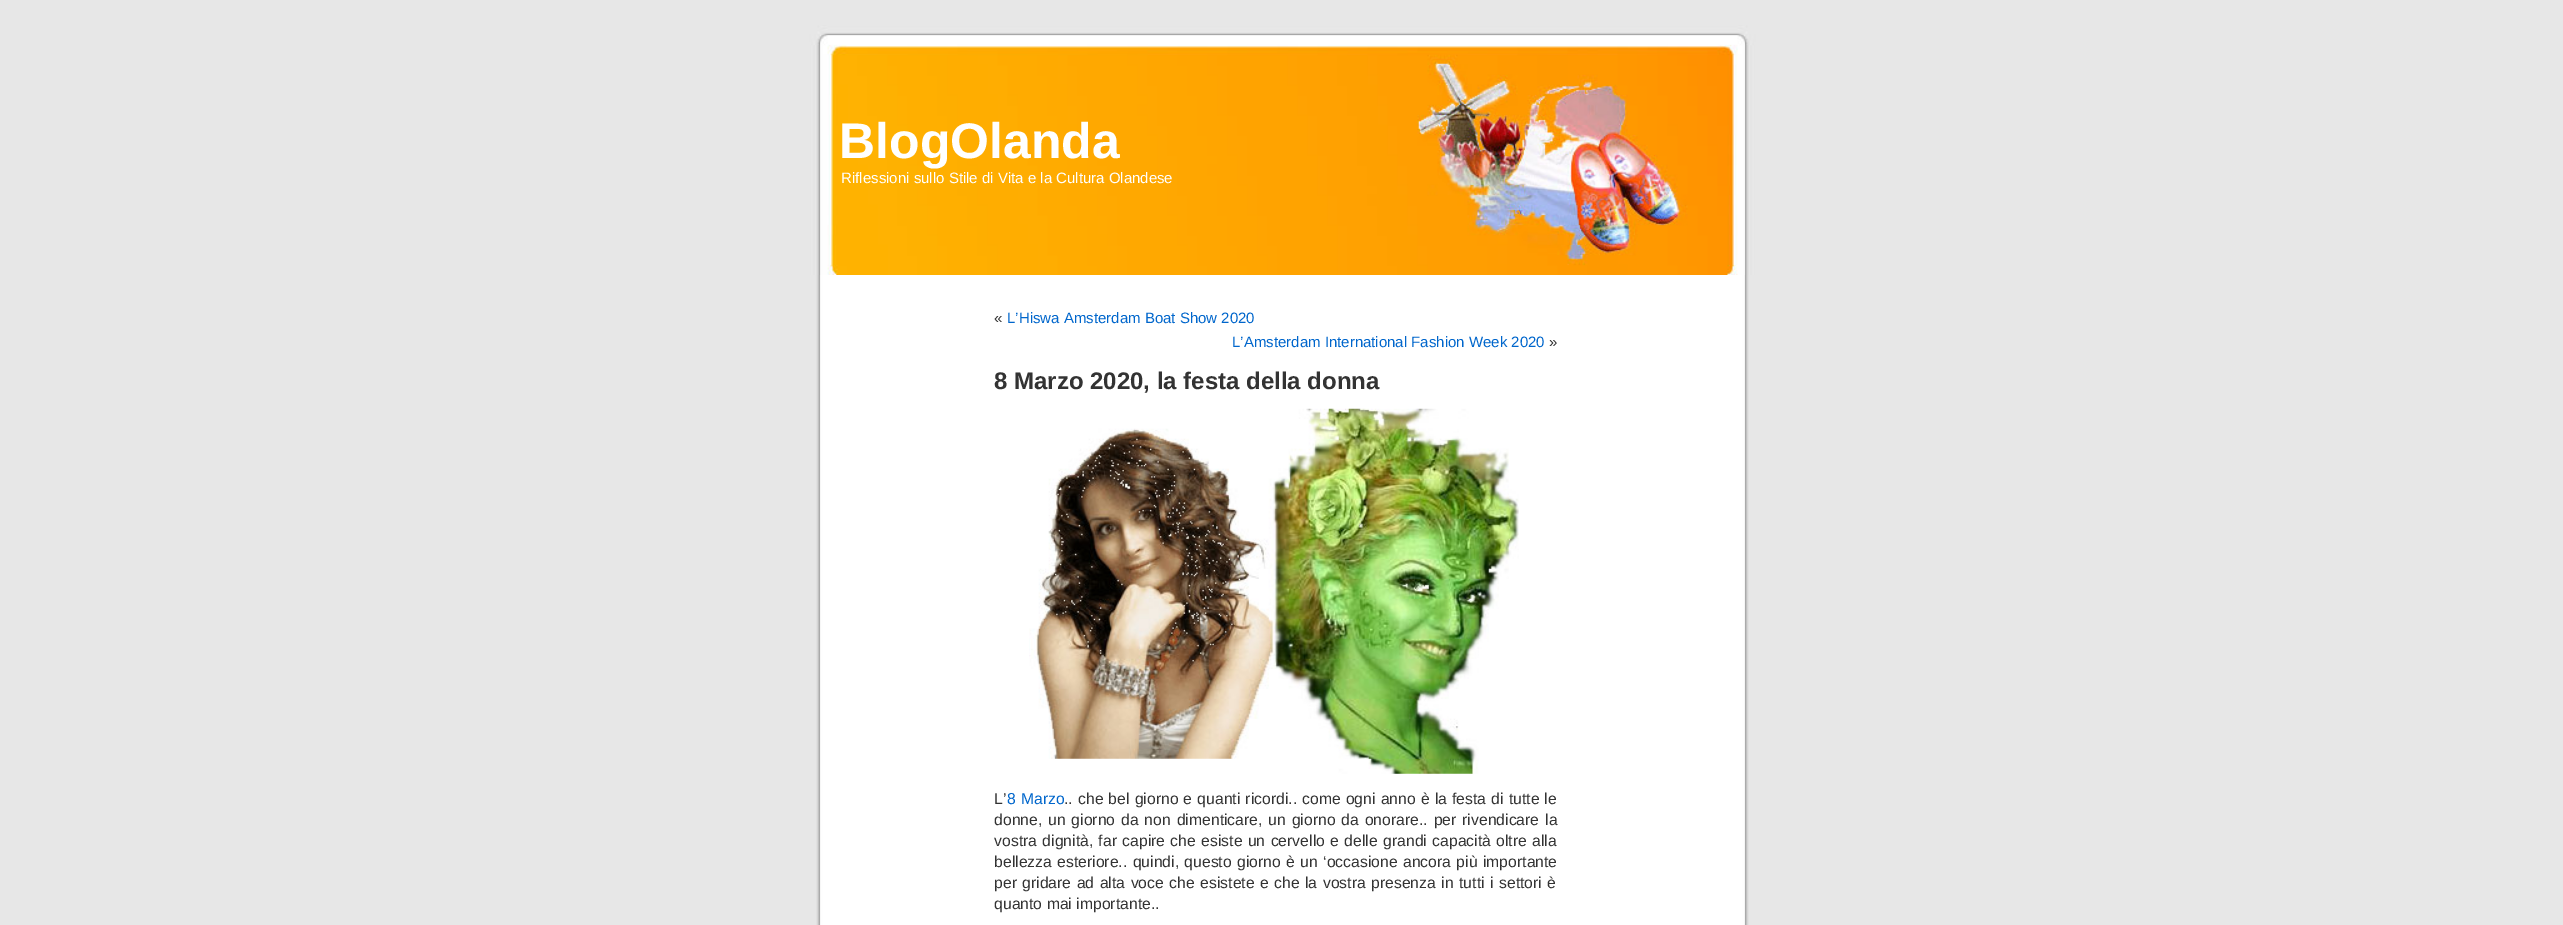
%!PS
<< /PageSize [2563 925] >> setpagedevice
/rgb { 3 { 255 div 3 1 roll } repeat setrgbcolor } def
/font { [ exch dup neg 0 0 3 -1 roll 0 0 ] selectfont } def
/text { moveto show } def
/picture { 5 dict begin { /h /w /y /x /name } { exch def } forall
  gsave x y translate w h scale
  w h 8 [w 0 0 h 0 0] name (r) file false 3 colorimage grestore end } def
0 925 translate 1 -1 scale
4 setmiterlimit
231 231 231 rgb
0 0 2563 925 rectfill
(img_01.rgb) 816 275 933 650 picture
(img_02.rgb) 809 25 947 250 picture
(img_03.rgb) 1029 408 490 366 picture
/LiberationSans-Bold 50 font
255 255 255 rgb
(BlogOlanda) 839 158 text
/LiberationSans-Regular 15 font
(Riflessioni sullo Stile di Vita e la Cultura Olandese) 841 183 text
51 51 51 rgb
(«) 994 323 text
0 102 204 rgb
(L’Hiswa Amsterdam Boat Show 2020) 1007 323 text
(L’Amsterdam International Fashion Week 2020) 1232 347 text
51 51 51 rgb
(») 1549 347 text
/LiberationSans-Bold 24 font
(8 Marzo 2020, la festa della donna) 994 389 text
/LiberationSans-Regular 15.75 font
(L’) 994 804 text
0 102 204 rgb
1007 804 moveto 0.75 0 32 (8 Marzo) widthshow
51 51 51 rgb
1064 804 moveto 0.75 0 32 (.. che bel giorno e quanti ricordi.. come ogni anno è la festa di tutte le) widthshow
994 825 moveto 1.5 0 32 (donne, un giorno da non dimenticare, un giorno da onorare.. per rivendicare la) widthshow
994 846 moveto 1 0 32 (vostra dignità, far capire che esiste un cervello e delle grandi capacità oltre alla) widthshow
994 867 moveto 1 0 32 (bellezza esteriore.. quindi, questo giorno è un ‘occasione ancora più importante) widthshow
994 888 moveto 1.1 0 32 (per gridare ad alta voce che esistete e che la vostra presenza in tutti i settori è) widthshow
(quanto mai importante..) 994 909 text
showpage
